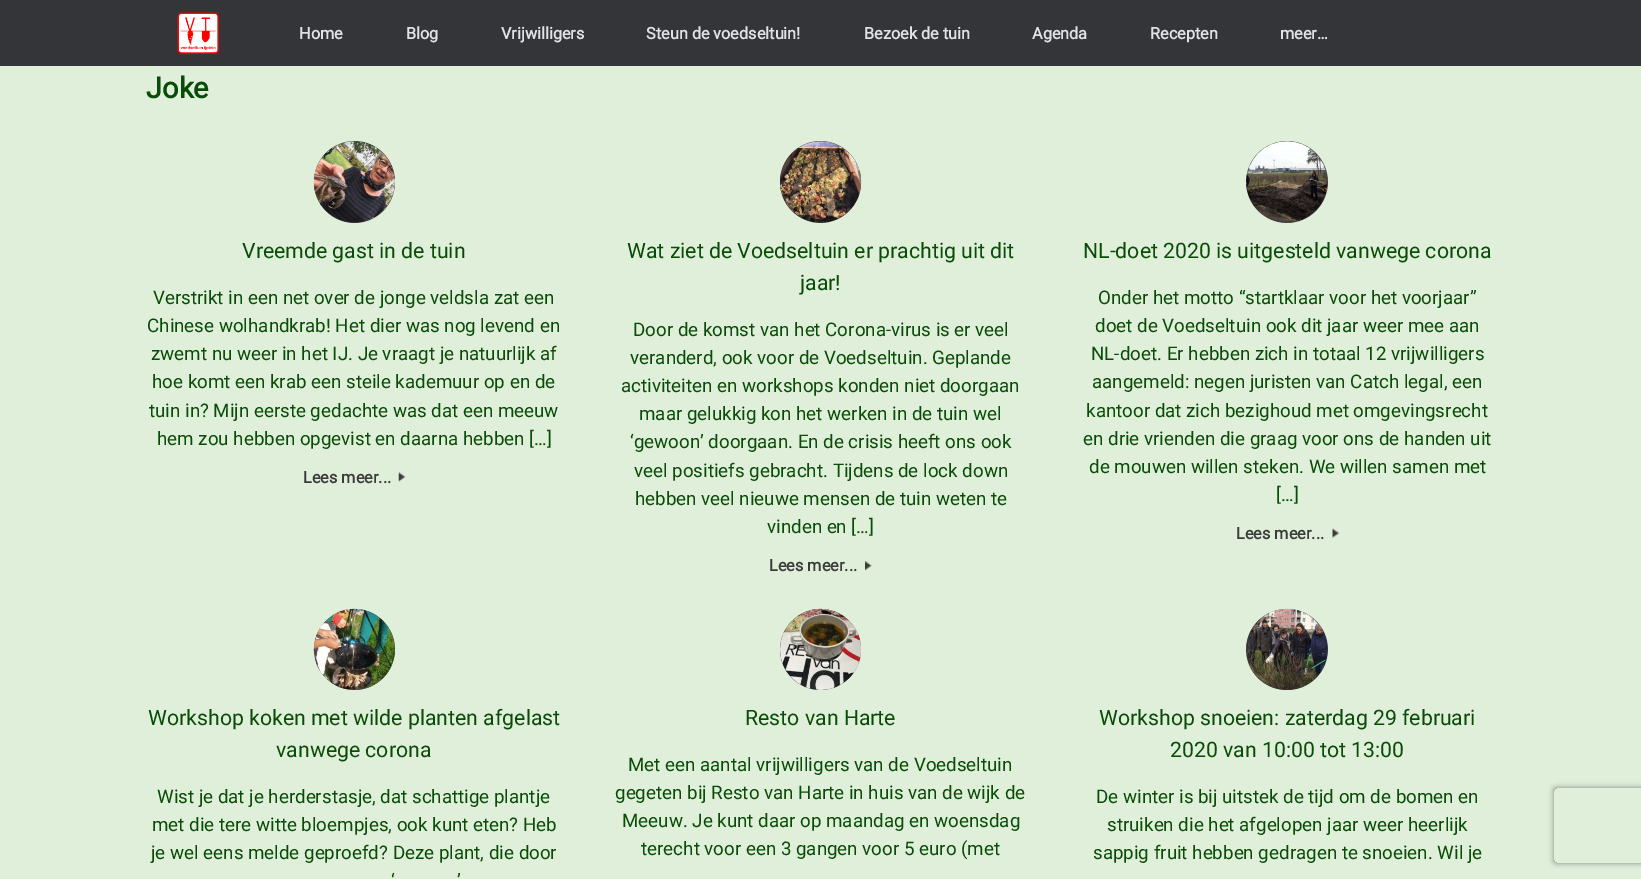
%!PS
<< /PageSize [1641 879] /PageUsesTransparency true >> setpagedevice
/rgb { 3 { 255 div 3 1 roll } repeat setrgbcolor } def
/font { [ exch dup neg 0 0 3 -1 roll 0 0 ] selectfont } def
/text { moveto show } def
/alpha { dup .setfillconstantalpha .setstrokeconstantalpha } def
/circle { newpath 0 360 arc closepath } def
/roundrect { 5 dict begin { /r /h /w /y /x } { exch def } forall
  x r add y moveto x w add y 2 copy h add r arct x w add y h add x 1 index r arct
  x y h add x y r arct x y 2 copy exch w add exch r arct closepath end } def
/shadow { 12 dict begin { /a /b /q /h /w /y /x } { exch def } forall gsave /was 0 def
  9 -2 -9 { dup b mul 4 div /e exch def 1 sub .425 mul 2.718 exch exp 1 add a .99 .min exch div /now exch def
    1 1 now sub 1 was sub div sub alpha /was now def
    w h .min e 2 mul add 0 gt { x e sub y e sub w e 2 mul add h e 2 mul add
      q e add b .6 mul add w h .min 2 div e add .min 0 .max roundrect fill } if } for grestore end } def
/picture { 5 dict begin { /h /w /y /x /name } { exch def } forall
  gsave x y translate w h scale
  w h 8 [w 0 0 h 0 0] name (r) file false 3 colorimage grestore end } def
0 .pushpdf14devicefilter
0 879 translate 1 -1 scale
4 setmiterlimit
224 239 218 rgb
0 0 1641 879 rectfill
52 53 56 rgb
0 0 1641 66 rectfill
(img_01.rgb) 177 12 42 42 picture
58 59 62 rgb
314 141 81 82 40.5 roundrect fill
(img_02.rgb) 313 141 82 82 picture
(img_03.rgb) 398 472 7 10 picture
780 141 81 82 40.5 roundrect fill
(img_04.rgb) 780 141 82 82 picture
(img_05.rgb) 865 561 7 10 picture
1287 182 41 circle fill
(img_06.rgb) 1246 141 82 82 picture
(img_07.rgb) 1332 528 7 10 picture
354.5 649.5 40.5 circle fill
(img_08.rgb) 313 608 82 82 picture
820.5 649.5 40.5 circle fill
(img_09.rgb) 780 608 82 82 picture
1246 609 82 81 40.5 roundrect fill
(img_10.rgb) 1246 608 82 82 picture
gsave
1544 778 moveto 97 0 rlineto 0 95 rlineto -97 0 rlineto closepath 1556.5 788 moveto 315 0 rlineto 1.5 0 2.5 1 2.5 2.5 rcurveto 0 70 rlineto 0 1.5 -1 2.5 -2.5 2.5 rcurveto -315 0 rlineto -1.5 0 -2.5 -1 -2.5 -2.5 rcurveto 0 -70 rlineto 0 -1.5 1 -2.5 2.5 -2.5 rcurveto closepath eoclip newpath
128 128 128 rgb
1554 788 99 75 2.5 3 1 shadow
grestore
/Roboto-Bold 16.25 font
226 226 226 rgb
(Home) 299 39 text
(Blog) 406 39 text
(Vrijwilligers) 501 39 text
(Steun de voedseltuin!) 646 39 text
(Bezoek de tuin) 864 39 text
(Agenda) 1032 39 text
(Recepten) 1150 39 text
(meer…) 1280 39 text
/Roboto-Bold 29 font
9 76 7 rgb
(Joke) 146 98 text
/Roboto-Regular 21.25 font
(Vreemde gast in de tuin) 242 258 text
/Roboto-Regular 18.75 font
(Verstrikt in een net over de jonge veldsla zat een) 153 304 text
(Chinese wolhandkrab! Het dier was nog levend en) 147 332 text
(zwemt nu weer in het IJ. Je vraagt je natuurlijk af) 151 360 text
(hoe komt een krab een steile kademuur op en de) 152 388 text
(tuin in? Mijn eerste gedachte was dat een meeuw) 149 417 text
(hem zou hebben opgevist en daarna hebben […]) 157 445 text
/Roboto-Bold 16.25 font
59 59 59 rgb
(Lees meer...) 303 483 text
/Roboto-Regular 21.25 font
9 76 7 rgb
(Wat ziet de Voedseltuin er prachtig uit dit) 627 258 text
(jaar!) 800 290 text
/Roboto-Regular 18.75 font
(Door de komst van het Corona-virus is er veel) 633 336 text
(veranderd, ook voor de Voedseltuin. Geplande) 630 364 text
(activiteiten en workshops konden niet doorgaan) 621 392 text
(maar gelukkig kon het werken in de tuin wel) 639 420 text
(‘gewoon’ doorgaan. En de crisis heeft ons ook) 630 448 text
(veel positiefs gebracht. Tijdens de lock down) 634 477 text
(hebben veel nieuwe mensen de tuin weten te) 635 505 text
(vinden en […]) 767 533 text
/Roboto-Bold 16.25 font
59 59 59 rgb
(Lees meer...) 769 571 text
/Roboto-Regular 21.25 font
9 76 7 rgb
(NL-doet 2020 is uitgesteld vanwege corona) 1083 258 text
/Roboto-Regular 18.75 font
(Onder het motto “startklaar voor het voorjaar”) 1098 304 text
(doet de Voedseltuin ook dit jaar weer mee aan) 1095 332 text
(NL-doet. Er hebben zich in totaal 12 vrijwilligers) 1091 360 text
(aangemeld: negen juristen van Catch legal, een) 1092 388 text
(kantoor dat zich bezighoud met omgevingsrecht) 1086 417 text
(en drie vrienden die graag voor ons de handen uit) 1083 445 text
(de mouwen willen steken. We willen samen met) 1089 473 text
([…]) 1276 501 text
/Roboto-Bold 16.25 font
59 59 59 rgb
(Lees meer...) 1236 539 text
/Roboto-Regular 21.25 font
9 76 7 rgb
(Workshop koken met wilde planten afgelast) 148 725 text
(vanwege corona) 276 757 text
/Roboto-Regular 18.75 font
(Wist je dat je herderstasje, dat schattige plantje) 157 803 text
(met die tere witte bloempjes, ook kunt eten? Heb) 152 831 text
(je wel eens melde geproefd? Deze plant, die door) 151 859 text
(‘) 391 887 text
(’) 457 887 text
/Roboto-Regular 21.25 font
(Resto van Harte) 745 725 text
/Roboto-Regular 18.75 font
(Met een aantal vrijwilligers van de Voedseltuin) 628 771 text
(gegeten bij Resto van Harte in huis van de wijk de) 615 799 text
(Meeuw. Je kunt daar op maandag en woensdag) 622 827 text
(terecht voor een 3 gangen voor 5 euro \(met) 641 855 text
/Roboto-Regular 21.25 font
(Workshop snoeien: zaterdag 29 februari) 1099 725 text
(2020 van 10:00 tot 13:00) 1170 757 text
/Roboto-Regular 18.75 font
(De winter is bij uitstek de tijd om de bomen en) 1096 803 text
(struiken die het afgelopen jaar weer heerlijk) 1107 831 text
(sappig fruit hebben gedragen te snoeien. Wil je) 1093 859 text
.poppdf14devicefilter showpage
